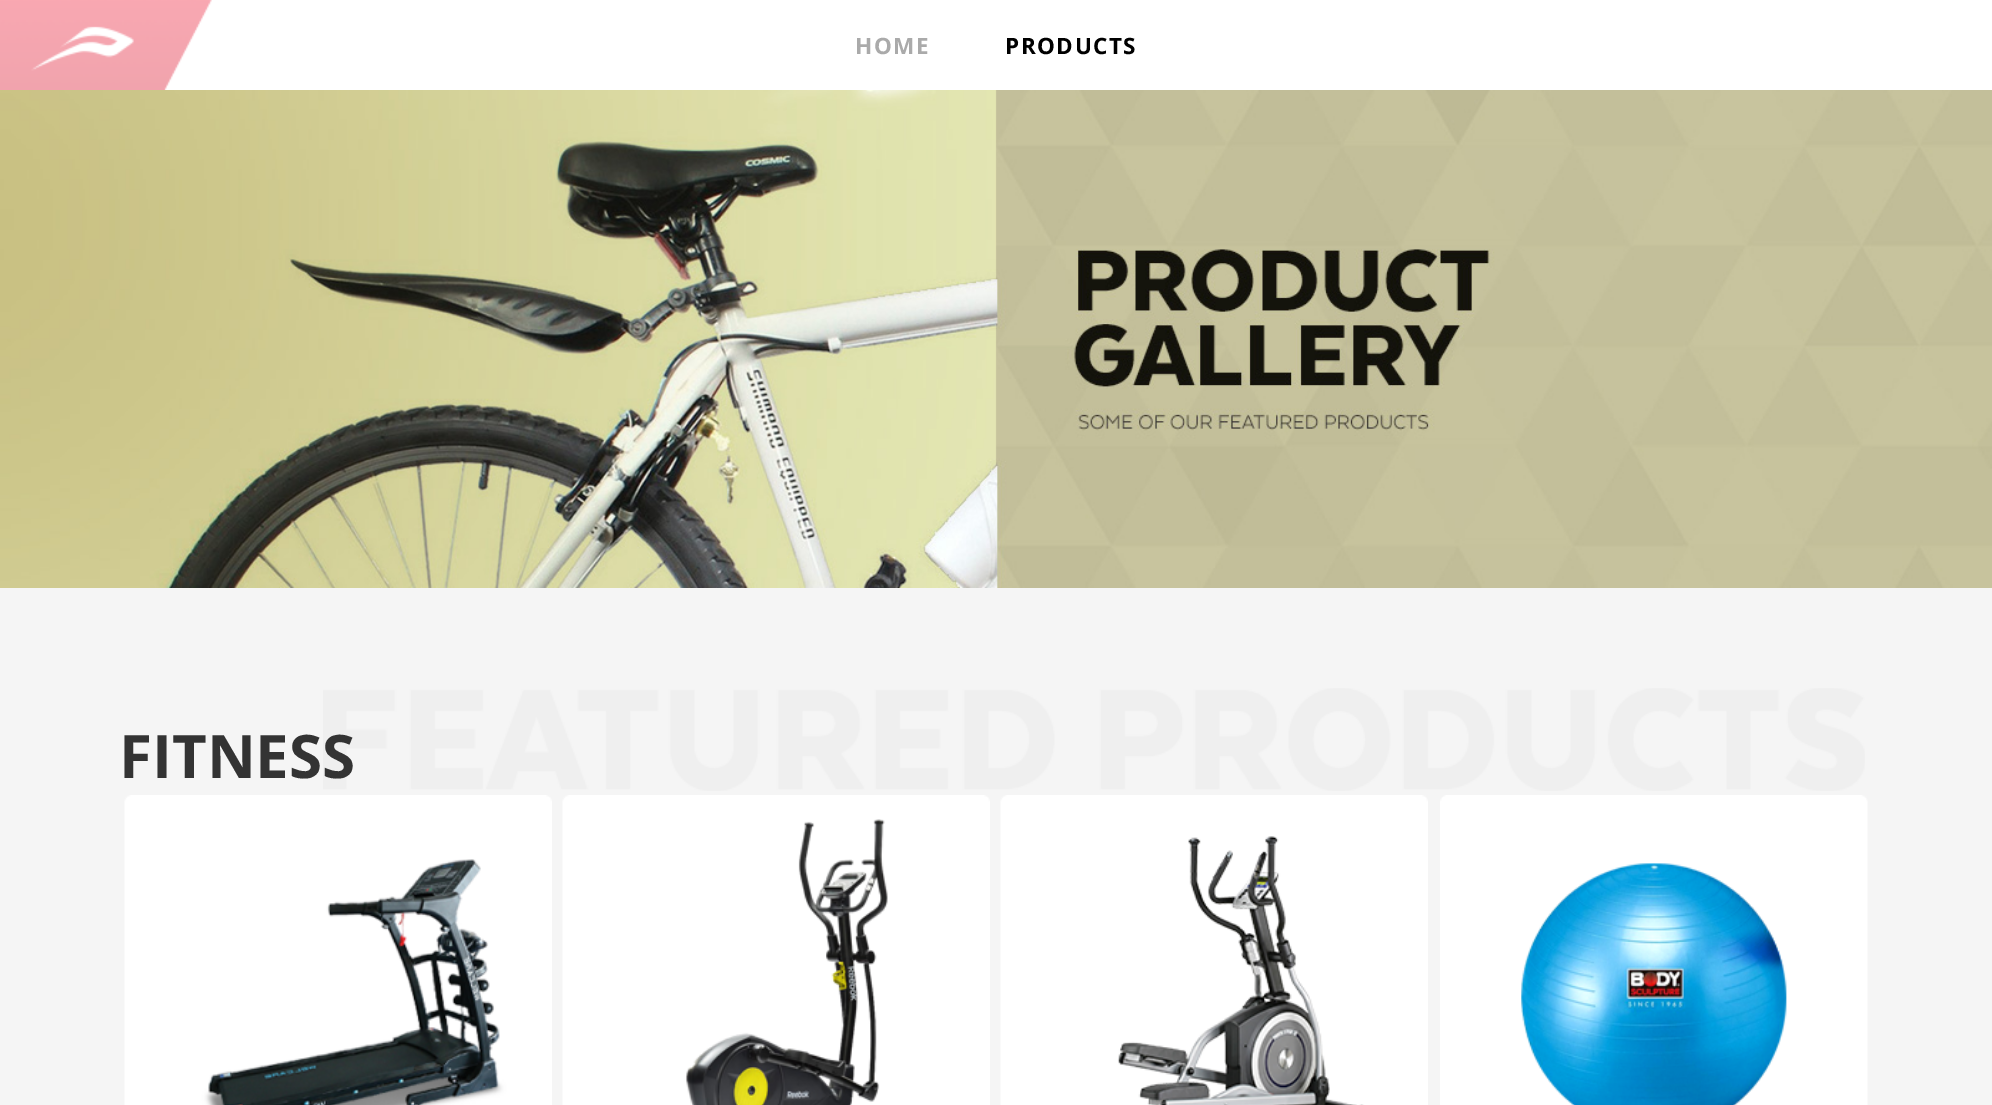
%!PS
<< /PageSize [1992 1105] >> setpagedevice
/rgb { 3 { 255 div 3 1 roll } repeat setrgbcolor } def
/font { [ exch dup neg 0 0 3 -1 roll 0 0 ] selectfont } def
/text { moveto show } def
/picture { 5 dict begin { /h /w /y /x /name } { exch def } forall
  gsave x y translate w h scale
  w h 8 [w 0 0 h 0 0] name (r) file false 3 colorimage grestore end } def
0 1105 translate 1 -1 scale
4 setmiterlimit
255 255 255 rgb
0 0 1992 1105 rectfill
(img_01.rgb) 0 0 212 90 picture
(img_02.rgb) 0 90 1992 498 picture
245 245 245 rgb
0 588 1992 517 rectfill
(img_03.rgb) 323 688 1542 103 picture
(img_04.rgb) 124 795 428 310 picture
(img_05.rgb) 562 795 428 310 picture
(img_06.rgb) 1000 795 428 310 picture
(img_07.rgb) 1440 795 428 310 picture
/OpenSans-Bold 22.5 font
170 170 170 rgb
855 54 moveto 1.5 0 (HOME) ashow
0 0 0 rgb
1005 54 moveto 1.5 0 (PRODUCTS) ashow
/OpenSans-Bold 60 font
51 51 51 rgb
(FITNESS) 119 778 text
showpage
